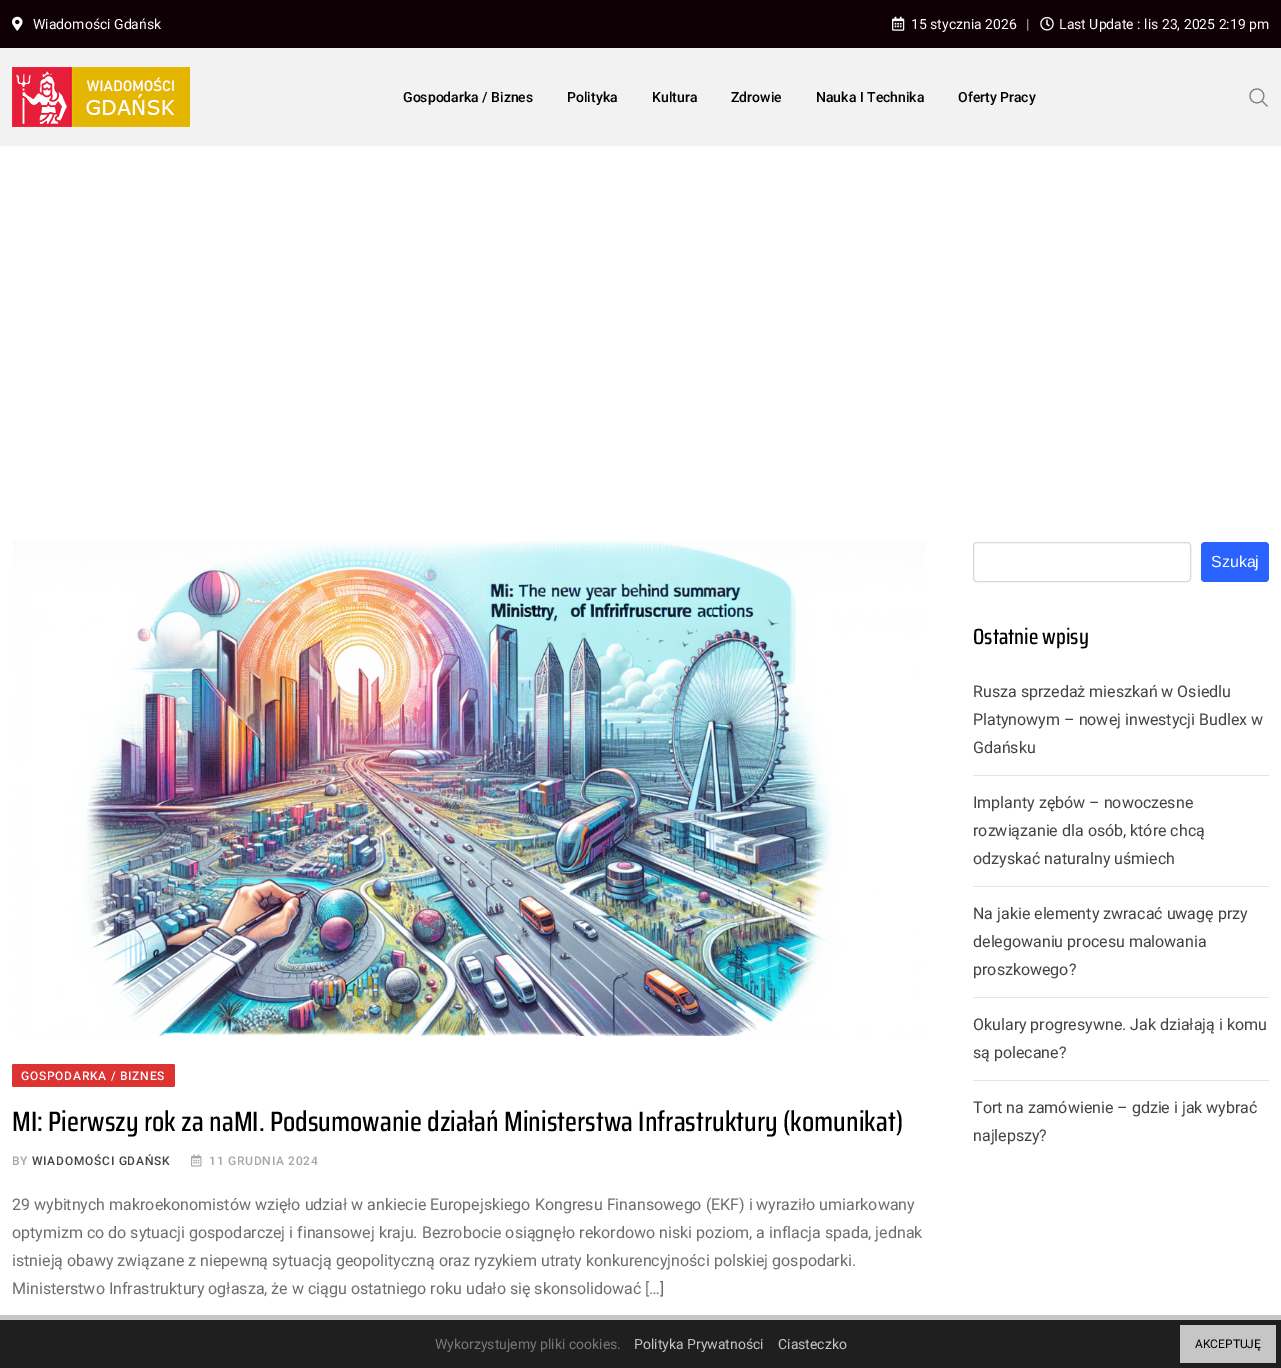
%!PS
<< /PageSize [1281 1368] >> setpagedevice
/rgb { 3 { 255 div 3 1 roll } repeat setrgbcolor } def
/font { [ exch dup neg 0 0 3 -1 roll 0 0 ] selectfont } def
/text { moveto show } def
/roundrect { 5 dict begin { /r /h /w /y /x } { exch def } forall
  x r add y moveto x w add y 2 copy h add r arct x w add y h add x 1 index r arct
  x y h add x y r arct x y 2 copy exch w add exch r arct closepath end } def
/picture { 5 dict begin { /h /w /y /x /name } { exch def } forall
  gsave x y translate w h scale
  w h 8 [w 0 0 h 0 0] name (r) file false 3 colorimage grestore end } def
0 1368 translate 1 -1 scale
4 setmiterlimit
255 255 255 rgb
0 0 1281 1368 rectfill
242 242 242 rgb
0 48 1281 98 rectfill
15 0 5 rgb
0 0 1281 48 rectfill
(img_01.rgb) 12 16 11 15 picture
(img_02.rgb) 892 16 13 15 picture
(img_03.rgb) 1040 17 14 14 picture
(img_04.rgb) 12 67 178 60 picture
(img_05.rgb) 1249 88 19 19 picture
217 217 217 rgb
973.5 542.5 217 39 3.5 roundrect stroke
41 98 255 rgb
1201 542 68 40 4 roundrect fill
229 229 229 rgb
973 775 296 1 rectfill
973 886 296 1 rectfill
973 997 296 1 rectfill
973 1080 296 1 rectfill
(img_06.rgb) 13 541 913 495 picture
221 51 51 rgb
12 1064 163 23 2 roundrect fill
(img_07.rgb) 191 1154 11 13 picture
31 31 31 rgb
0 1320 1281 48 rectfill
198 198 198 rgb
0 1315 1281 5 rectfill
1180 1325 96 38 rectfill
/Roboto-Regular 14 font
255 255 255 rgb
(Wiadomości Gdańsk) 33 29 text
(15 stycznia 2026) 911 29 text
187 187 187 rgb
(|) 1026 29 text
255 255 255 rgb
(Last Update : lis 23, 2025 2:19 pm) 1059 29 text
/Roboto-Medium 14 font
0 0 0 rgb
(Gospodarka / Biznes) 403 102 text
(Polityka) 567 102 text
(Kultura) 652 102 text
(Zdrowie) 731 102 text
(Nauka I Technika) 816 102 text
(Oferty Pracy) 958 102 text
/LiberationSans-Regular 16 font
255 255 255 rgb
(Szukaj) 1211 567 text
/SairaCondensed-Medium 22 font
0 0 0 rgb
(Ostatnie wpisy) 973 644 text
/Roboto-Regular 16 font
68 68 68 rgb
(Rusza sprzedaż mieszkań w Osiedlu) 973 697 text
(Platynowym – nowej inwestycji Budlex w) 973 725 text
(Gdańsku) 973 753 text
(Implanty zębów – nowoczesne) 973 808 text
(rozwiązanie dla osób, które chcą) 973 836 text
(odzyskać naturalny uśmiech) 973 864 text
(Na jakie elementy zwracać uwagę przy) 973 919 text
(delegowaniu procesu malowania) 973 947 text
(proszkowego?) 973 975 text
(Okulary progresywne. Jak działają i komu) 973 1030 text
(są polecane?) 973 1058 text
(Tort na zamówienie – gdzie i jak wybrać) 973 1113 text
(najlepszy?) 973 1141 text
/Roboto-Medium 12 font
255 255 255 rgb
21 1080 moveto 0.75 0 (GOSPODARKA / BIZNES) ashow
/SairaCondensed-Medium 28 font
0 0 0 rgb
(MI: Pierwszy rok za naMI. Podsumowanie działań Ministerstwa Infrastruktury \(komunikat\)) 12 1131 text
/Roboto-Medium 12 font
165 166 170 rgb
12 1165 moveto 0.75 0 (BY) ashow
68 68 68 rgb
32 1165 moveto 0.75 0 (WIADOMOŚCI GDAŃSK) ashow
165 166 170 rgb
209 1165 moveto 0.75 0 (11 GRUDNIA 2024) ashow
/Roboto-Regular 16 font
108 111 114 rgb
(29 wybitnych makroekonomistów wzięło udział w ankiecie Europejskiego Kongresu Finansowego \(EKF\) i wyraziło umiarkowany) 12 1210 text
(optymizm co do sytuacji gospodarczej i finansowej kraju. Bezrobocie osiągnęło rekordowo niski poziom, a inflacja spada, jednak) 12 1238 text
(istnieją obawy związane z niepewną sytuacją geopolityczną oraz ryzykiem utraty konkurencyjności polskiej gospodarki.) 12 1266 text
(Ministerstwo Infrastruktury ogłasza, że w ciągu ostatniego roku udało się skonsolidować […]) 12 1294 text
/Roboto-Regular 14 font
119 119 119 rgb
(Wykorzystujemy pliki cookies.) 435 1349 text
198 198 198 rgb
(Polityka Prywatności) 634 1349 text
(Ciasteczko) 778 1349 text
/Roboto-Regular 12 font
0 0 0 rgb
(AKCEPTUJĘ) 1195 1348 text
showpage
